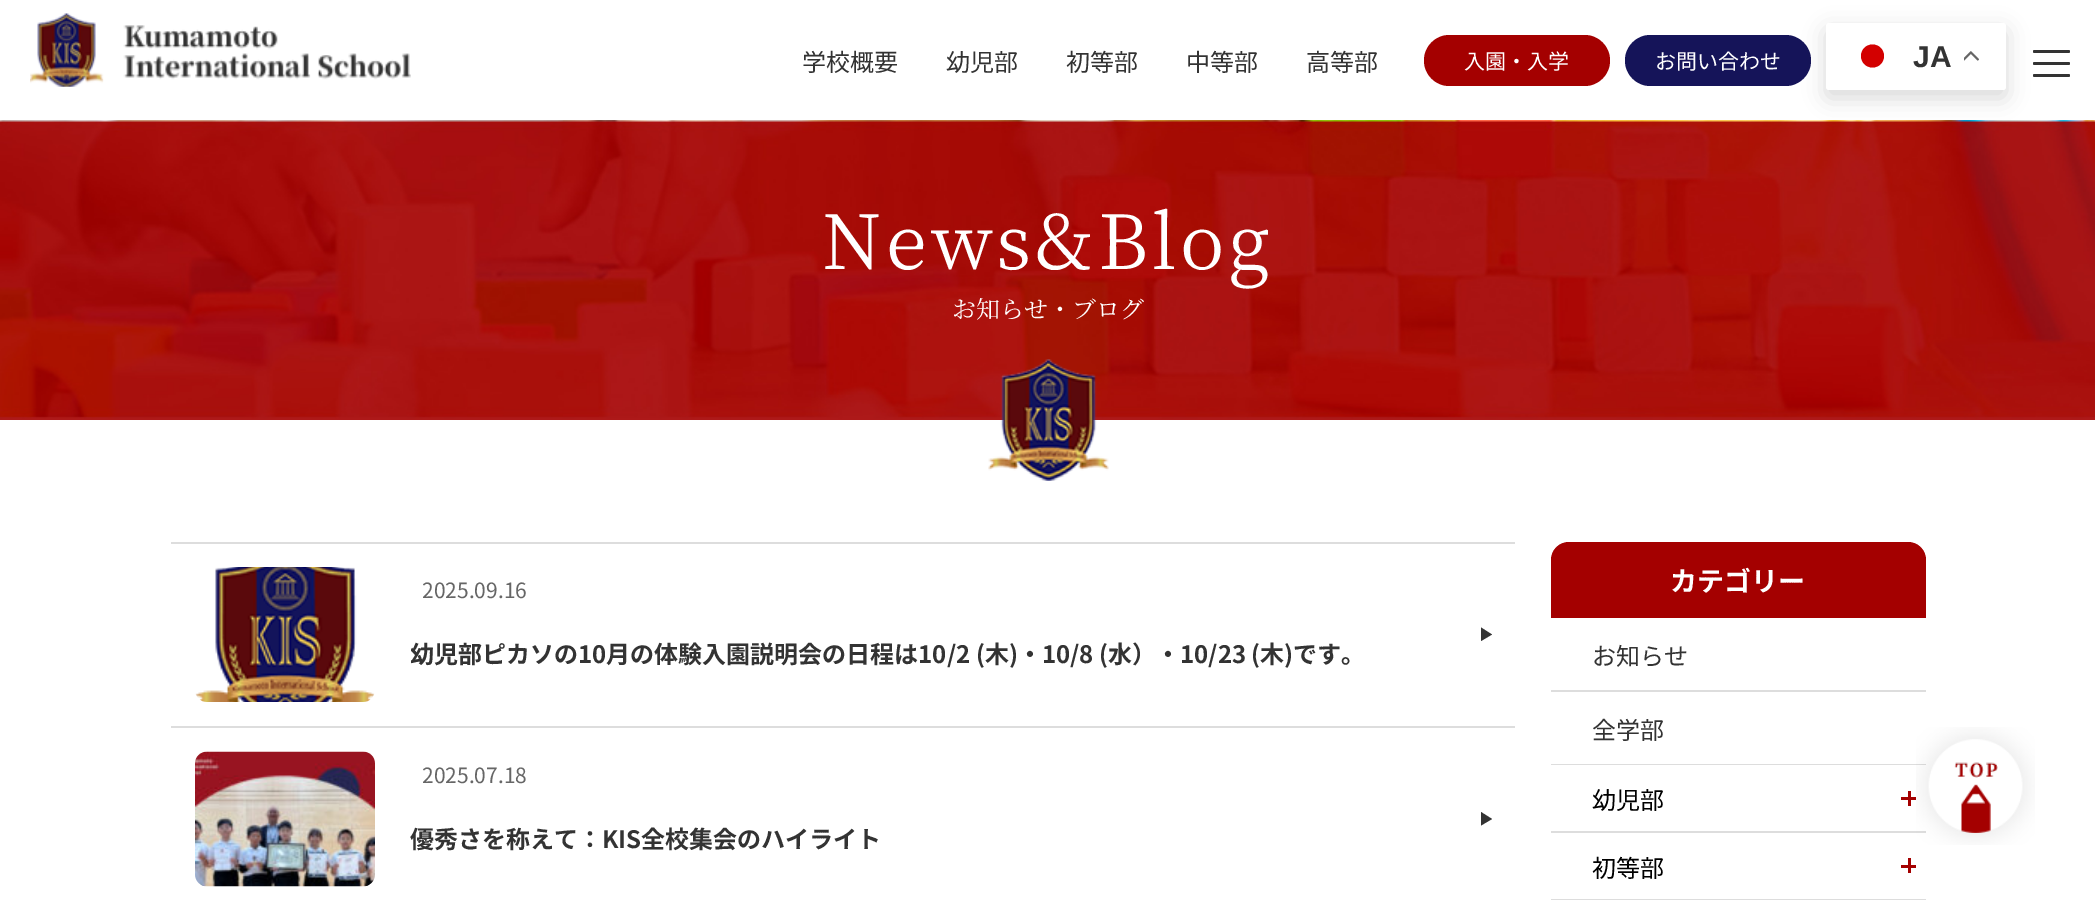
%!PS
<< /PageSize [2095 905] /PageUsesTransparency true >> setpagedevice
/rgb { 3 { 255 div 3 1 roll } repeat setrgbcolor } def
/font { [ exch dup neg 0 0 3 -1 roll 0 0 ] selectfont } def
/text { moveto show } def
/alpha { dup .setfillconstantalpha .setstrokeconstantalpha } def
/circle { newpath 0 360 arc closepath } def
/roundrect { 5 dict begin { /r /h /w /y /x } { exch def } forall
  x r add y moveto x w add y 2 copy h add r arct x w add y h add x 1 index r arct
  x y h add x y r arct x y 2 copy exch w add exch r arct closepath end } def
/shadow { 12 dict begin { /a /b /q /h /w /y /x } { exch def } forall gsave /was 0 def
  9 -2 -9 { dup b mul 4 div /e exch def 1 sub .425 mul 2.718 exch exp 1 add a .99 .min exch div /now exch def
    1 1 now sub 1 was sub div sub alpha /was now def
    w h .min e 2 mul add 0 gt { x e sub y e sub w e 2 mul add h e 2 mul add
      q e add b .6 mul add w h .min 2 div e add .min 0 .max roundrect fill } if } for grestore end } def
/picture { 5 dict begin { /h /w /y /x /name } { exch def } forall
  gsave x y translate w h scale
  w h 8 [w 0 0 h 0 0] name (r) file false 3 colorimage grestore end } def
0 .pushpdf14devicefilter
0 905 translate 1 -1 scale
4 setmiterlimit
255 255 255 rgb
0 0 2095 905 rectfill
(img_01.rgb) 30 13 381 74 picture
164 0 0 rgb
1424 35 186 51 25.5 roundrect fill
21 20 89 rgb
1625 35 186 51 25.5 roundrect fill
(img_03.rgb) 0 120 2095 300 picture
0 0 0 rgb
1826 30 180 68 3 11 0.15 shadow
255 255 255 rgb
1826 23 180 67 3 roundrect fill
211 0 0 rgb
1872.5 56 11.5 circle fill
(img_02.rgb) 1964 51 15 10 picture
51 51 51 rgb
2033 62 37 3 1.5 roundrect fill
2033 50 37 3 1.5 roundrect fill
2033 74 37 3 1.5 roundrect fill
(img_04.rgb) 988 359 121 122 picture
221 221 221 rgb
171 542 1344 2 rectfill
(img_05.rgb) 195 567 180 135 picture
51 51 51 rgb
1481 627.5 moveto 11 7 rlineto -11 6.5 rlineto closepath fill
221 221 221 rgb
171 726 1344 2 rectfill
(img_06.rgb) 195 751 180 136 picture
51 51 51 rgb
1481 812 moveto 11 7 rlineto -11 6.5 rlineto closepath fill
164 0 0 rgb
1569 542 moveto 339 0 rlineto 10 0 18 8 18 18 rcurveto 0 58 rlineto -375 0 rlineto 0 -58 rlineto 0 -10 8 -18 18 -18 rcurveto closepath fill
221 221 221 rgb
1551 690 375 2 rectfill
1551 764 375 1 rectfill
1551 831 375 2 rectfill
164 0 0 rgb
1908 791 3 15 rectfill
1901 797 15 3 rectfill
221 221 221 rgb
1551 899 375 1 rectfill
164 0 0 rgb
1908 858 3 15 rectfill
1901 865 15 3 rectfill
(img_07.rgb) 1916 727 119 118 picture
/NotoSansJP-Regular 24 font
51 51 51 rgb
(学校概要) 802 71 text
(幼児部) 946 71 text
(初等部) 1066 71 text
(中等部) 1186 71 text
(高等部) 1306 71 text
/NotoSansJP-Regular 21 font
255 255 255 rgb
(入園・入学) 1464 69 text
(お問い合わせ) 1655 69 text
/LiberationSans-Bold 30 font
51 51 51 rgb
(JA) 1913 67 text
/NotoSerifJP-Regular 75 font
255 255 255 rgb
822 269 moveto 3.75 0 (News&Blog) ashow
/NotoSerifJP-Regular 24 font
(お知らせ・ブログ) 952 318 text
/NotoSansJP-Regular 21 font
102 102 102 rgb
(2025.09.16) 422 598 text
gsave
411 632 1052 42 rectclip
/NotoSansJP-Bold 24 font
51 51 51 rgb
(幼児部ピカソの10月の体験入園説明会の日程は10/2 \(木\)・10/8 \(水）・10/23 \(木\)です。) 410 663 text
grestore
(2025.07.18) 422 783 text
/NotoSansJP-Bold 24 font
51 51 51 rgb
(優秀さを称えて：KIS全校集会のハイライト) 410 848 text
/NotoSansJP-Bold 27 font
255 255 255 rgb
(カテゴリー) 1670 591 text
/NotoSansJP-Regular 24 font
51 51 51 rgb
(お知らせ) 1592 665 text
(全学部) 1592 739 text
0 0 0 rgb
(幼児部) 1592 809 text
(初等部) 1592 877 text
.poppdf14devicefilter showpage
